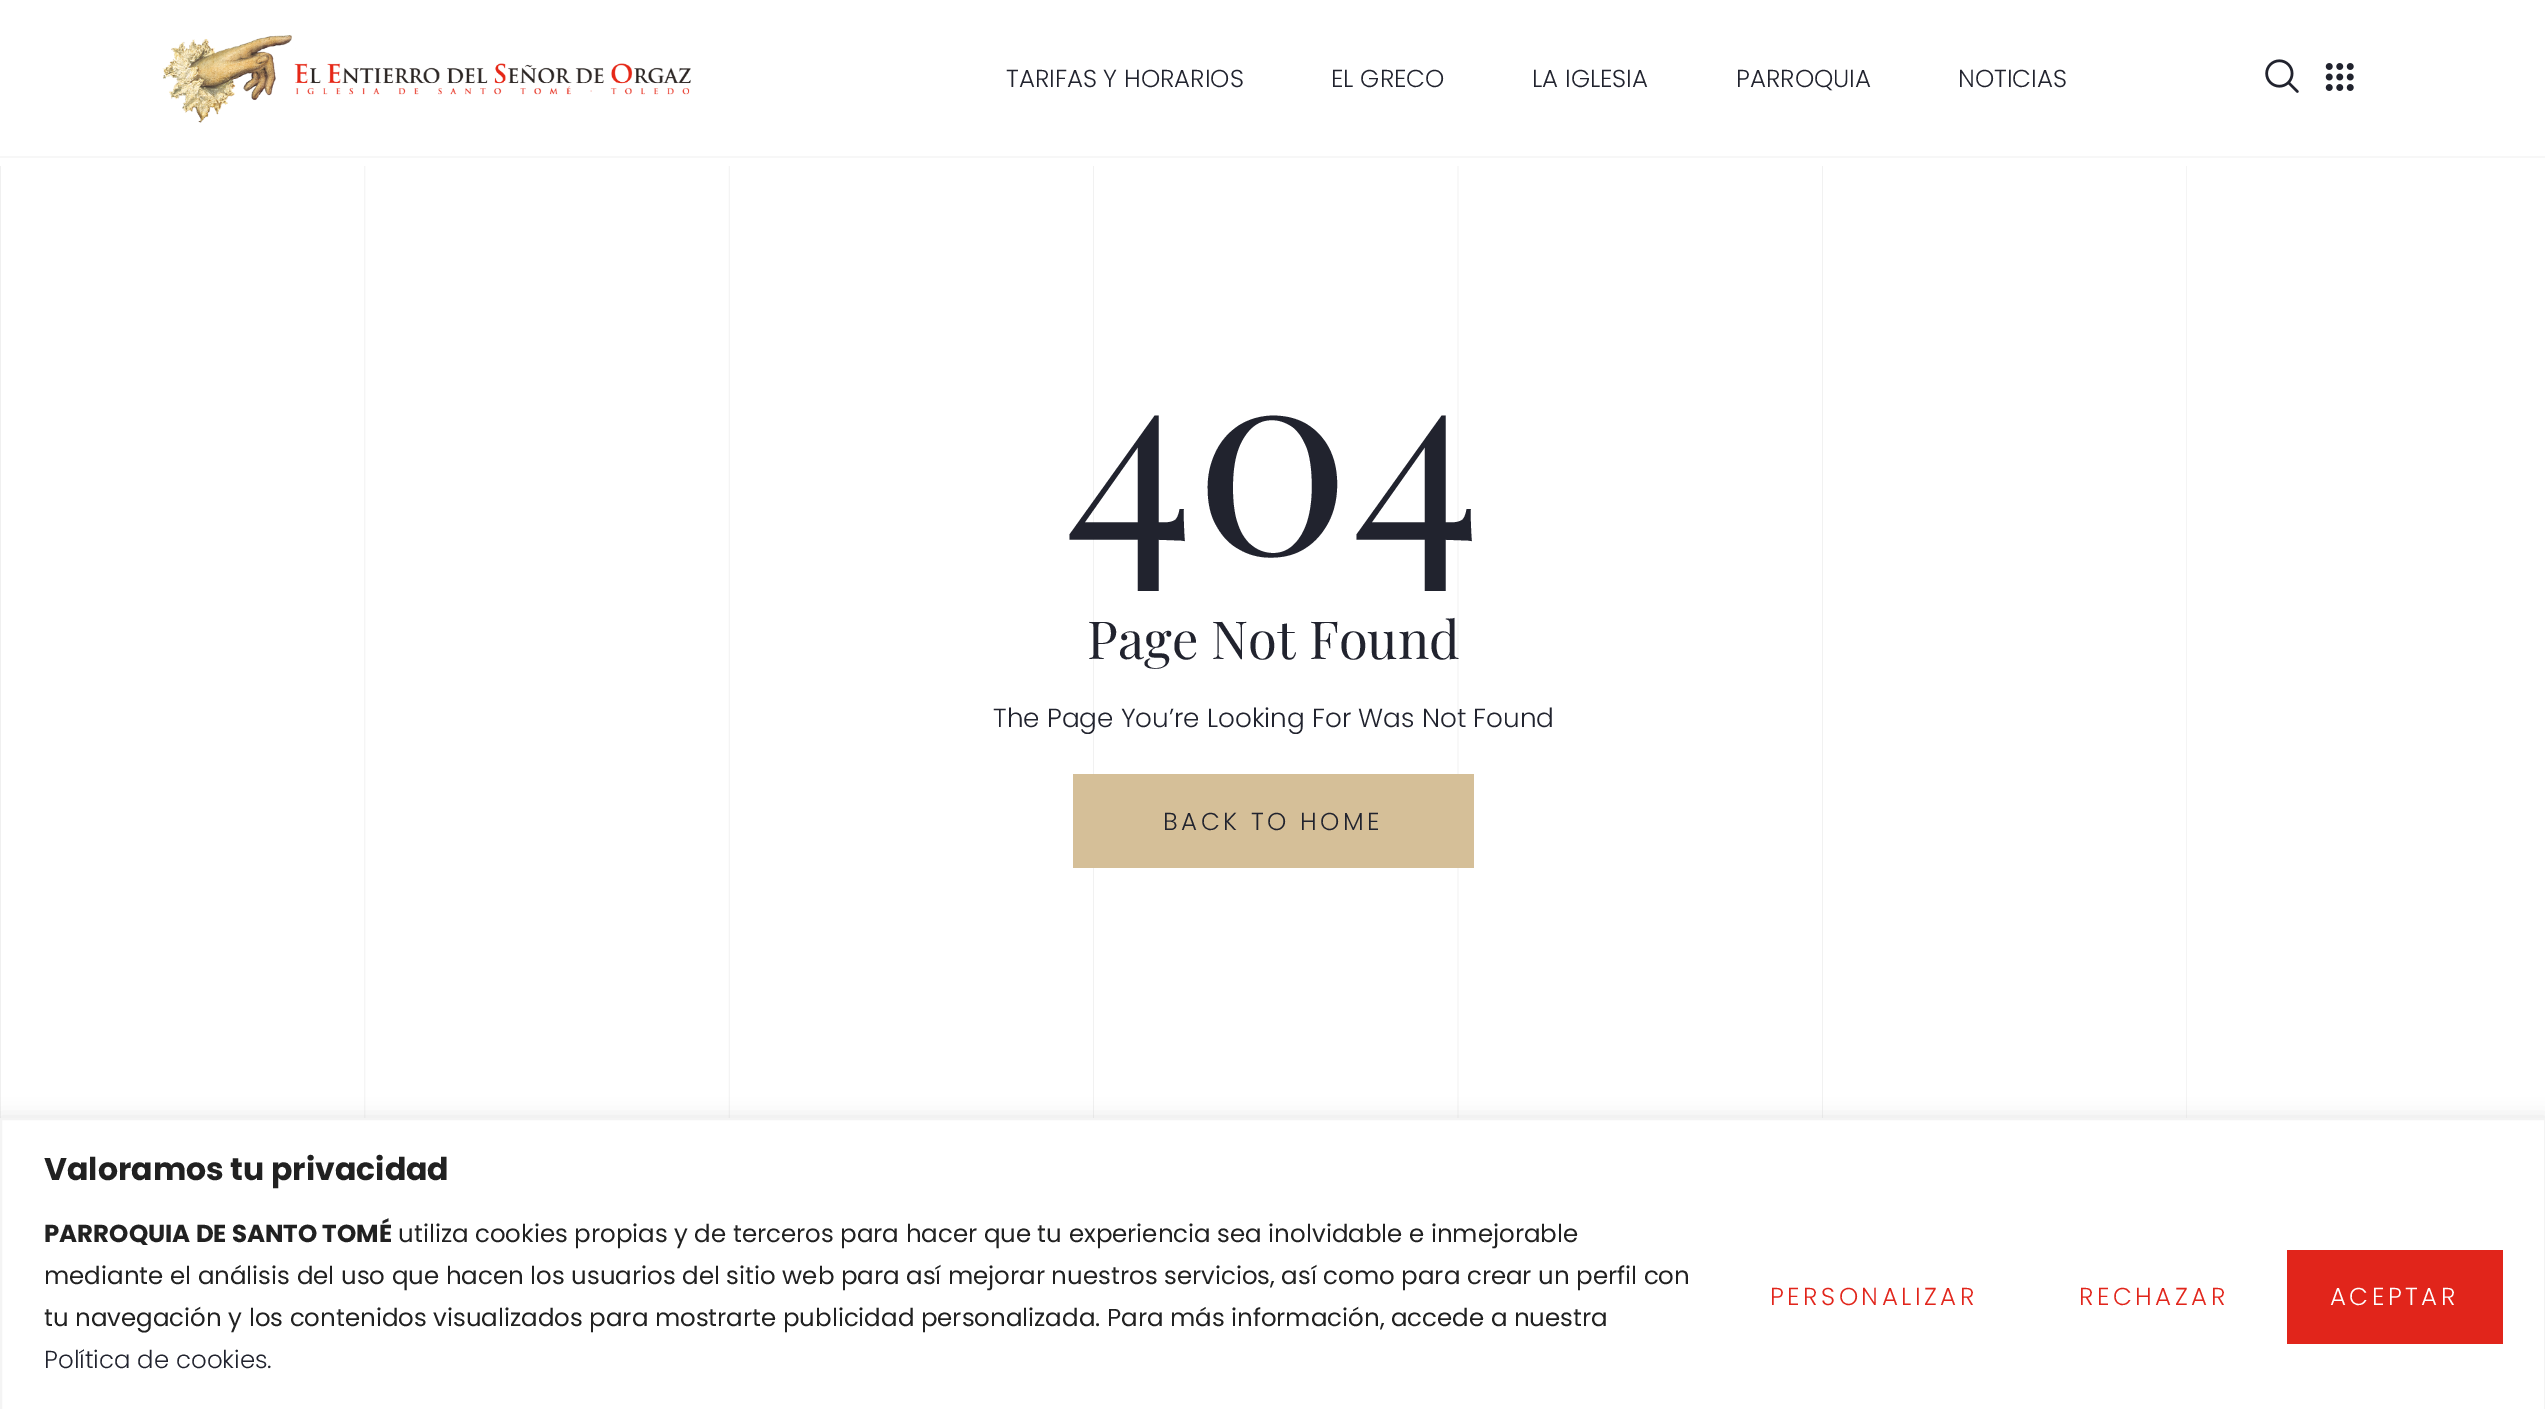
%!PS
<< /PageSize [2545 1409] /PageUsesTransparency true >> setpagedevice
/rgb { 3 { 255 div 3 1 roll } repeat setrgbcolor } def
/font { [ exch dup neg 0 0 3 -1 roll 0 0 ] selectfont } def
/text { moveto show } def
/alpha { dup .setfillconstantalpha .setstrokeconstantalpha } def
/roundrect { 5 dict begin { /r /h /w /y /x } { exch def } forall
  x r add y moveto x w add y 2 copy h add r arct x w add y h add x 1 index r arct
  x y h add x y r arct x y 2 copy exch w add exch r arct closepath end } def
/shadow { 12 dict begin { /a /b /q /h /w /y /x } { exch def } forall gsave /was 0 def
  9 -2 -9 { dup b mul 4 div /e exch def 1 sub .425 mul 2.718 exch exp 1 add a .99 .min exch div /now exch def
    1 1 now sub 1 was sub div sub alpha /was now def
    w h .min e 2 mul add 0 gt { x e sub y e sub w e 2 mul add h e 2 mul add
      q e add b .6 mul add w h .min 2 div e add .min 0 .max roundrect fill } if } for grestore end } def
/picture { 5 dict begin { /h /w /y /x /name } { exch def } forall
  gsave x y translate w h scale
  w h 8 [w 0 0 h 0 0] name (r) file false 3 colorimage grestore end } def
0 .pushpdf14devicefilter
0 1409 translate 1 -1 scale
4 setmiterlimit
255 255 255 rgb
0 0 2545 1409 rectfill
(img_01.rgb) 162 35 529 88 picture
(img_02.rgb) 2265 59 34 34 picture
(img_03.rgb) 2325 63 29 28 picture
247 247 247 rgb
0 156 2545 2 rectfill
(img_04.rgb) 0 166 2187 952 picture
213 191 152 rgb
1073 774 401 94 rectfill
172 171 171 rgb
0 1117 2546 292 0 9 0.3 shadow
255 255 255 rgb
1 1119 moveto 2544 0 rlineto 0 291 rlineto -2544 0 rlineto closepath gsave fill grestore
244 244 244 rgb
2 setlinewidth
stroke
225 37 27 rgb
2287 1250 216 94 rectfill
/Poppins-Light 24.5 font
33 35 46 rgb
(TARIFAS Y HORARIOS) 1006 87 text
(EL GRECO) 1331 87 text
(LA IGLESIA) 1532 87 text
(PARROQUIA) 1736 87 text
(NOTICIAS) 1958 87 text
/PlayfairDisplay-Regular 262 font
(404) 1065 554 text
/PlayfairDisplay-Regular 52.5 font
(Page Not Found) 1087 659 text
/Poppins-Light 26.25 font
(The Page You’re Looking For Was Not Found) 993 727 text
/Poppins-Light 24.5 font
1163 830 moveto 3.5 0 (BACK TO HOME) ashow
/Poppins-Bold 31.5 font
33 33 33 rgb
(Valoramos tu privacidad) 44 1180 text
/Poppins-Bold 24.5 font
(PARROQUIA DE SANTO TOMÉ) 44 1242 text
/Poppins-Regular 24.5 font
(utiliza cookies propias y de terceros para hacer que tu experiencia sea inolvidable e inmejorable) 398 1242 text
(mediante el análisis del uso que hacen los usuarios del sitio web para así mejorar nuestros servicios, así como para crear un perfil con) 44 1284 text
(tu navegación y los contenidos visualizados para mostrarte publicidad personalizada. Para más información, accede a nuestra) 44 1326 text
/Poppins-Light 24.5 font
33 35 46 rgb
(Política de cookies.) 44 1368 text
225 37 27 rgb
1770 1305 moveto 3.5 0 (PERSONALIZAR) ashow
2079 1305 moveto 3.5 0 (RECHAZAR) ashow
255 255 255 rgb
2330 1305 moveto 3.5 0 (ACEPTAR) ashow
.poppdf14devicefilter showpage
